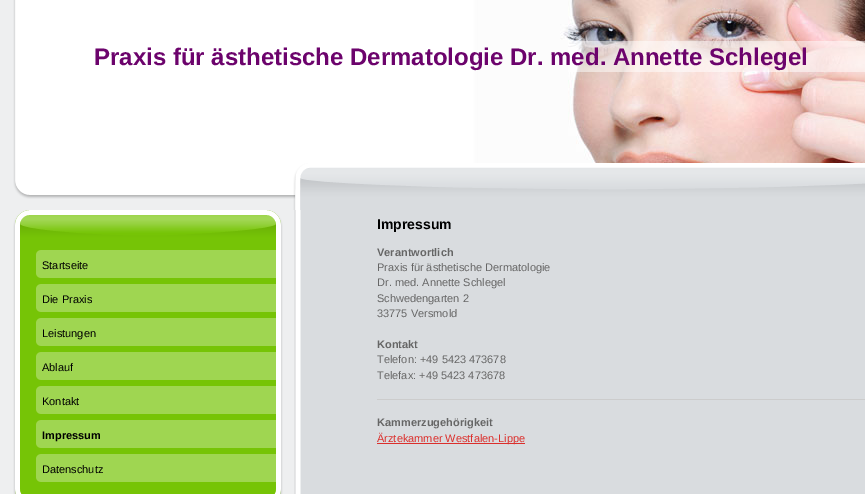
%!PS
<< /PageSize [865 494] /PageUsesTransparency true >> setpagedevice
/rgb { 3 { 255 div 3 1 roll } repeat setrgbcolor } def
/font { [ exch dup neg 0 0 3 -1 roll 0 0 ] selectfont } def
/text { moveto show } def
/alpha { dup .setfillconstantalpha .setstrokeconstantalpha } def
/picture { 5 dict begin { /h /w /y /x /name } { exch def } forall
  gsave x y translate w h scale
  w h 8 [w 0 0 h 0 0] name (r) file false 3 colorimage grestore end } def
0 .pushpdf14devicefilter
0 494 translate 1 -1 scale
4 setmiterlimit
238 239 240 rgb
0 0 865 494 rectfill
(img_02.rgb) 15 0 850 195 picture
(img_03.rgb) 0 163 865 47 picture
(img_01.rgb) 0 0 20 191 picture
0.5 alpha
255 255 255 rgb
568 41 297 31 rectfill
1 alpha
118 196 6 rgb
15 210 266 284 rectfill
(img_04.rgb) 13 210 270 40 picture
(img_05.rgb) 13 488 270 6 picture
(img_06.rgb) 13 250 270 238 picture
(img_07.rgb) 36 250 240 28 picture
(img_07.rgb) 36 284 240 28 picture
(img_07.rgb) 36 318 240 28 picture
(img_07.rgb) 36 352 240 28 picture
(img_07.rgb) 36 386 240 28 picture
(img_07.rgb) 36 420 240 28 picture
(img_07.rgb) 36 454 240 28 picture
(img_08.rgb) 294 210 571 284 picture
204 204 204 rgb
377 399 488 1 rectfill
219 47 44 rgb
377 443 148 1 rectfill
/LiberationSans-Bold 24 font
108 3 108 rgb
(Praxis für ästhetische Dermatologie Dr. med. Annette Schlegel) 94 65 text
/LiberationSans-Regular 11 font
0 0 0 rgb
(Startseite) 42 269 text
(Die Praxis) 42 303 text
(Leistungen) 42 337 text
(Ablauf) 42 371 text
(Kontakt) 42 405 text
/LiberationSans-Bold 11 font
(Impressum) 42 439 text
/LiberationSans-Regular 11 font
(Datenschutz) 42 473 text
/LiberationSans-Bold 14 font
(Impressum) 377 229 text
/LiberationSans-Bold 11 font
102 102 102 rgb
(Verantwortlich) 377 256 text
/LiberationSans-Regular 11 font
(Praxis für ästhetische Dermatologie) 377 271 text
(Dr. med. Annette Schlegel) 377 286 text
(Schwedengarten 2) 377 302 text
(33775 Versmold) 377 317 text
/LiberationSans-Bold 11 font
(Kontakt) 377 348 text
/LiberationSans-Regular 11 font
(Telefon: +49 5423 473678) 377 363 text
(Telefax: +49 5423 473678) 377 379 text
/LiberationSans-Bold 11 font
(Kammerzugehörigkeit) 377 426 text
/LiberationSans-Regular 11 font
219 47 44 rgb
(Ärztekammer Westfalen-Lippe) 377 442 text
.poppdf14devicefilter showpage
